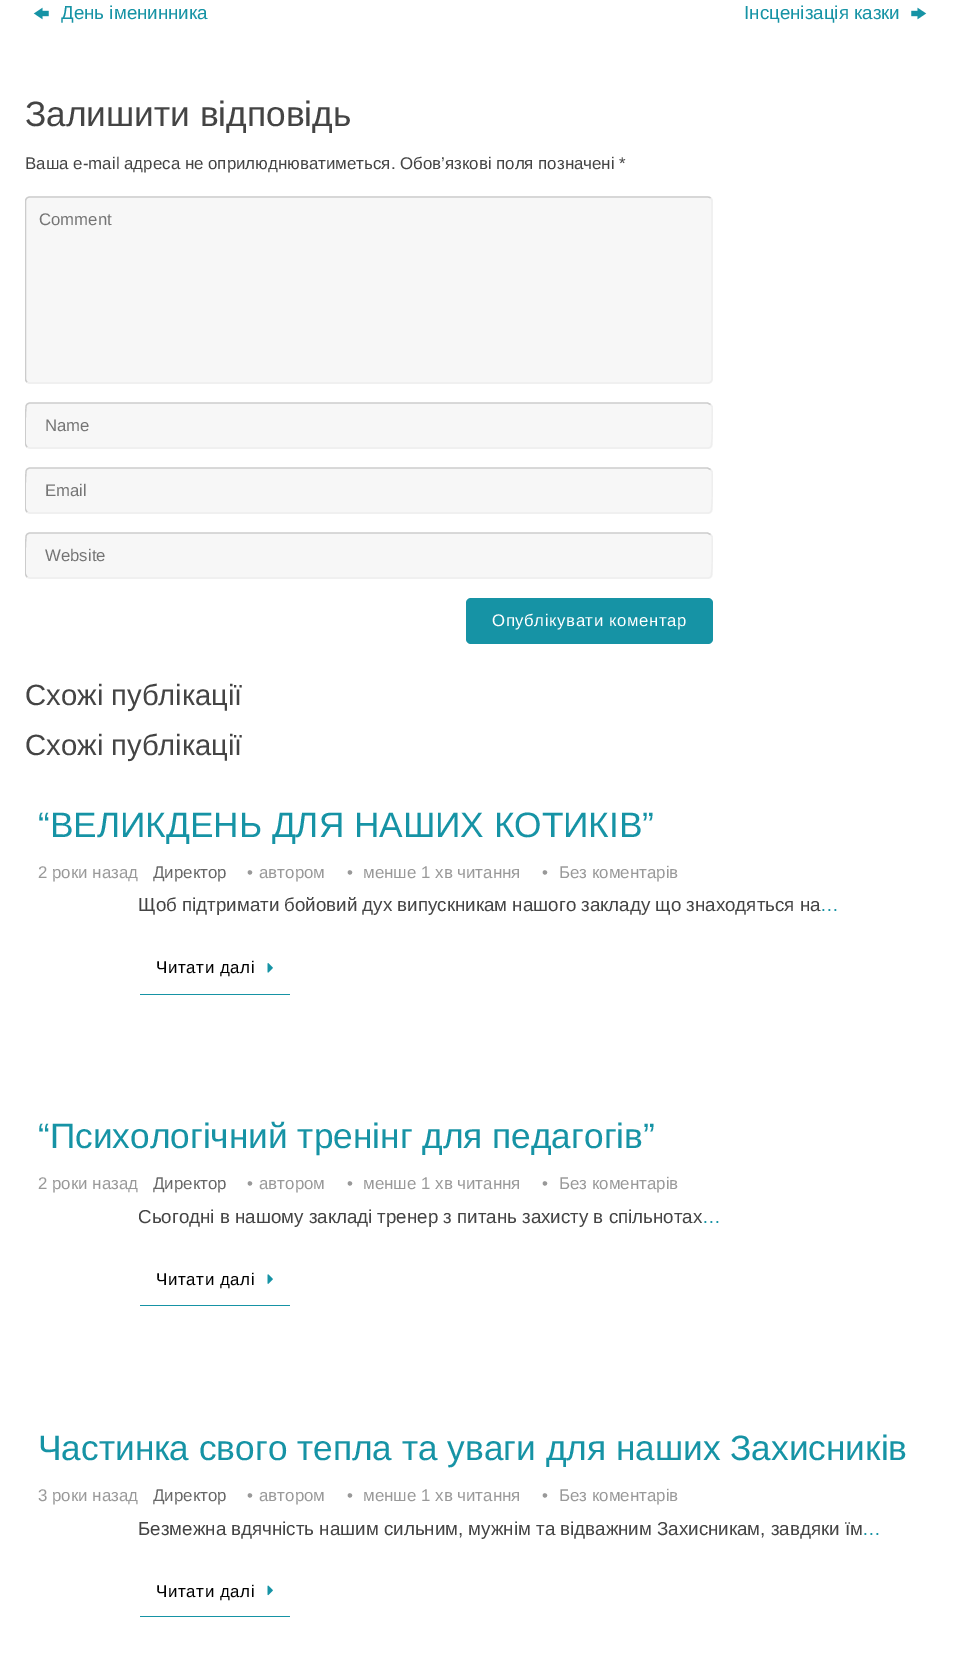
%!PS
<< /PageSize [959 1657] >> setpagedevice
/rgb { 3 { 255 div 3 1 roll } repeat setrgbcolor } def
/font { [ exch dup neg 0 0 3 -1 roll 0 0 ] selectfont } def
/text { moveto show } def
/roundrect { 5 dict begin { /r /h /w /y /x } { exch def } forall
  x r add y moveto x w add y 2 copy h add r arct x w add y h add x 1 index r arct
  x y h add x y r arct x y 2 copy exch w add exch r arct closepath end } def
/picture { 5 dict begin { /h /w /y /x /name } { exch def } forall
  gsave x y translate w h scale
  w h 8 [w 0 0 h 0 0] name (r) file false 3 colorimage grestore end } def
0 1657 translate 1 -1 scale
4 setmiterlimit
255 255 255 rgb
0 0 959 1657 rectfill
(img_01.rgb) 33 7 16 13 picture
(img_02.rgb) 911 7 16 13 picture
247 247 247 rgb
25 196 688 188 5 roundrect fill
238 238 238 rgb
1.2 setlinewidth
710.5 198 moveto 1 1 1.5 2 1.5 3 rcurveto 0 178 rlineto 0 1 -0.5 2 -1.5 3 rcurveto -0.5 0.5 -2 1 -3 1 rcurveto -677.5 0 rlineto -1 0 -2.5 -0.5 -3 -1 rcurveto stroke
gsave
25 79 910 580 rectclip
204 204 204 rgb
27 382 moveto -1 -1 -1.5 -2 -1.5 -3 rcurveto 0 -178 rlineto 0 -1 0.5 -2 1.5 -3 rcurveto 0.5 -0.5 2 -1 3 -1 rcurveto 677.5 0 rlineto 1 0 2.5 0.5 3 1 rcurveto stroke
grestore
247 247 247 rgb
25 403 688 46 5 roundrect fill
238 238 238 rgb
710.5 404.5 moveto 1.5 2 rlineto 0.5 3 0.5 38 -1 39.5 rcurveto -0.5 1.5 -2 2 -3.5 2 rcurveto -677.5 0 rlineto -3 -1 rlineto stroke
gsave
25 79 910 580 rectclip
204 204 204 rgb
27 447 moveto -1.5 -2.5 rlineto -0.5 -3 -0.5 -37.5 1 -39.5 rcurveto 0.5 -1 2 -2 3.5 -2 rcurveto 677.5 0 rlineto 3 1.5 rlineto stroke
grestore
247 247 247 rgb
25 468 688 46 5 roundrect fill
238 238 238 rgb
710.5 469.5 moveto 1.5 2 rlineto 0.5 3 0.5 38 -1 39.5 rcurveto -0.5 1.5 -2 2 -3.5 2 rcurveto -677.5 0 rlineto -3 -1 rlineto stroke
gsave
25 79 910 580 rectclip
204 204 204 rgb
27 512 moveto -1.5 -2.5 rlineto -0.5 -3 -0.5 -37.5 1 -39.5 rcurveto 0.5 -1 2 -2 3.5 -2 rcurveto 677.5 0 rlineto 3 1.5 rlineto stroke
grestore
247 247 247 rgb
25 533 688 46 5 roundrect fill
238 238 238 rgb
710.5 534.5 moveto 1.5 2 rlineto 0.5 3 0.5 38 -1 39.5 rcurveto -0.5 1.5 -2 2 -3.5 2 rcurveto -677.5 0 rlineto -3 -1 rlineto stroke
gsave
25 79 910 580 rectclip
204 204 204 rgb
27 577 moveto -1.5 -2.5 rlineto -0.5 -3 -0.5 -37.5 1 -39.5 rcurveto 0.5 -1 2 -2 3.5 -2 rcurveto 677.5 0 rlineto 3 1.5 rlineto stroke
grestore
22 147 165 rgb
466 598 247 46 5 roundrect fill
140 994 150 1 rectfill
(img_03.rgb) 267 963 6 10 picture
140 1305 150 1 rectfill
(img_04.rgb) 267 1274 6 10 picture
140 1616 150 1 rectfill
(img_05.rgb) 267 1585 6 11 picture
/LiberationSans-Regular 18.75 font
(День іменинника) 61 19 text
(Інсценізація казки) 744 19 text
/LiberationSans-Regular 35.25 font
68 68 68 rgb
(Залишити відповідь) 25 126 text
/LiberationSans-Regular 16.9 font
(Ваша e-mail адреса не оприлюднюватиметься. Обов’язкові поля позначені *) 25 169 text
/LiberationSans-Regular 16.75 font
117 117 117 rgb
(Comment) 39 225 text
(Name) 45 431 text
(Email) 45 496 text
(Website) 45 561 text
255 255 255 rgb
492 626 moveto 0.6 0 (Опублікувати коментар) ashow
/LiberationSans-Regular 29.25 font
68 68 68 rgb
(Схожі публікації) 25 705 text
(Схожі публікації) 25 755 text
/LiberationSans-Regular 35.25 font
22 147 165 rgb
(“ВЕЛИКДЕНЬ ДЛЯ НАШИХ КОТИКІВ”) 38 837 text
/LiberationSans-Regular 16.9 font
153 153 153 rgb
(2 роки назад) 38 878 text
102 102 102 rgb
(Директор) 153 878 text
153 153 153 rgb
(•) 247 878 text
(автором) 259 878 text
(•) 347 878 text
(менше 1 хв читання) 363 878 text
(•) 542 878 text
(Без коментарів) 559 878 text
/LiberationSans-Regular 18.75 font
68 68 68 rgb
(Щоб підтримати бойовий дух випускникам нашого закладу що знаходяться на) 138 911 text
22 147 165 rgb
(…) 820 911 text
/LiberationSans-Regular 16.9 font
0 0 0 rgb
156 973 moveto 0.6 0 (Читати далі) ashow
/LiberationSans-Regular 35.25 font
22 147 165 rgb
(“Психологічний тренінг для педагогів”) 38 1148 text
/LiberationSans-Regular 16.9 font
153 153 153 rgb
(2 роки назад) 38 1189 text
102 102 102 rgb
(Директор) 153 1189 text
153 153 153 rgb
(•) 247 1189 text
(автором) 259 1189 text
(•) 347 1189 text
(менше 1 хв читання) 363 1189 text
(•) 542 1189 text
(Без коментарів) 559 1189 text
/LiberationSans-Regular 18.75 font
68 68 68 rgb
(Сьогодні в нашому закладі тренер з питань захисту в спільнотах) 138 1223 text
22 147 165 rgb
(…) 702 1223 text
/LiberationSans-Regular 16.9 font
0 0 0 rgb
156 1285 moveto 0.6 0 (Читати далі) ashow
/LiberationSans-Regular 35.25 font
22 147 165 rgb
(Частинка свого тепла та уваги для наших Захисників) 38 1460 text
/LiberationSans-Regular 16.9 font
153 153 153 rgb
(3 роки назад) 38 1501 text
102 102 102 rgb
(Директор) 153 1501 text
153 153 153 rgb
(•) 247 1501 text
(автором) 259 1501 text
(•) 347 1501 text
(менше 1 хв читання) 363 1501 text
(•) 542 1501 text
(Без коментарів) 559 1501 text
/LiberationSans-Regular 18.75 font
68 68 68 rgb
(Безмежна вдячність нашим сильним, мужнім та відважним Захисникам, завдяки їм) 138 1535 text
22 147 165 rgb
(…) 862 1535 text
/LiberationSans-Regular 16.9 font
0 0 0 rgb
156 1597 moveto 0.6 0 (Читати далі) ashow
showpage
